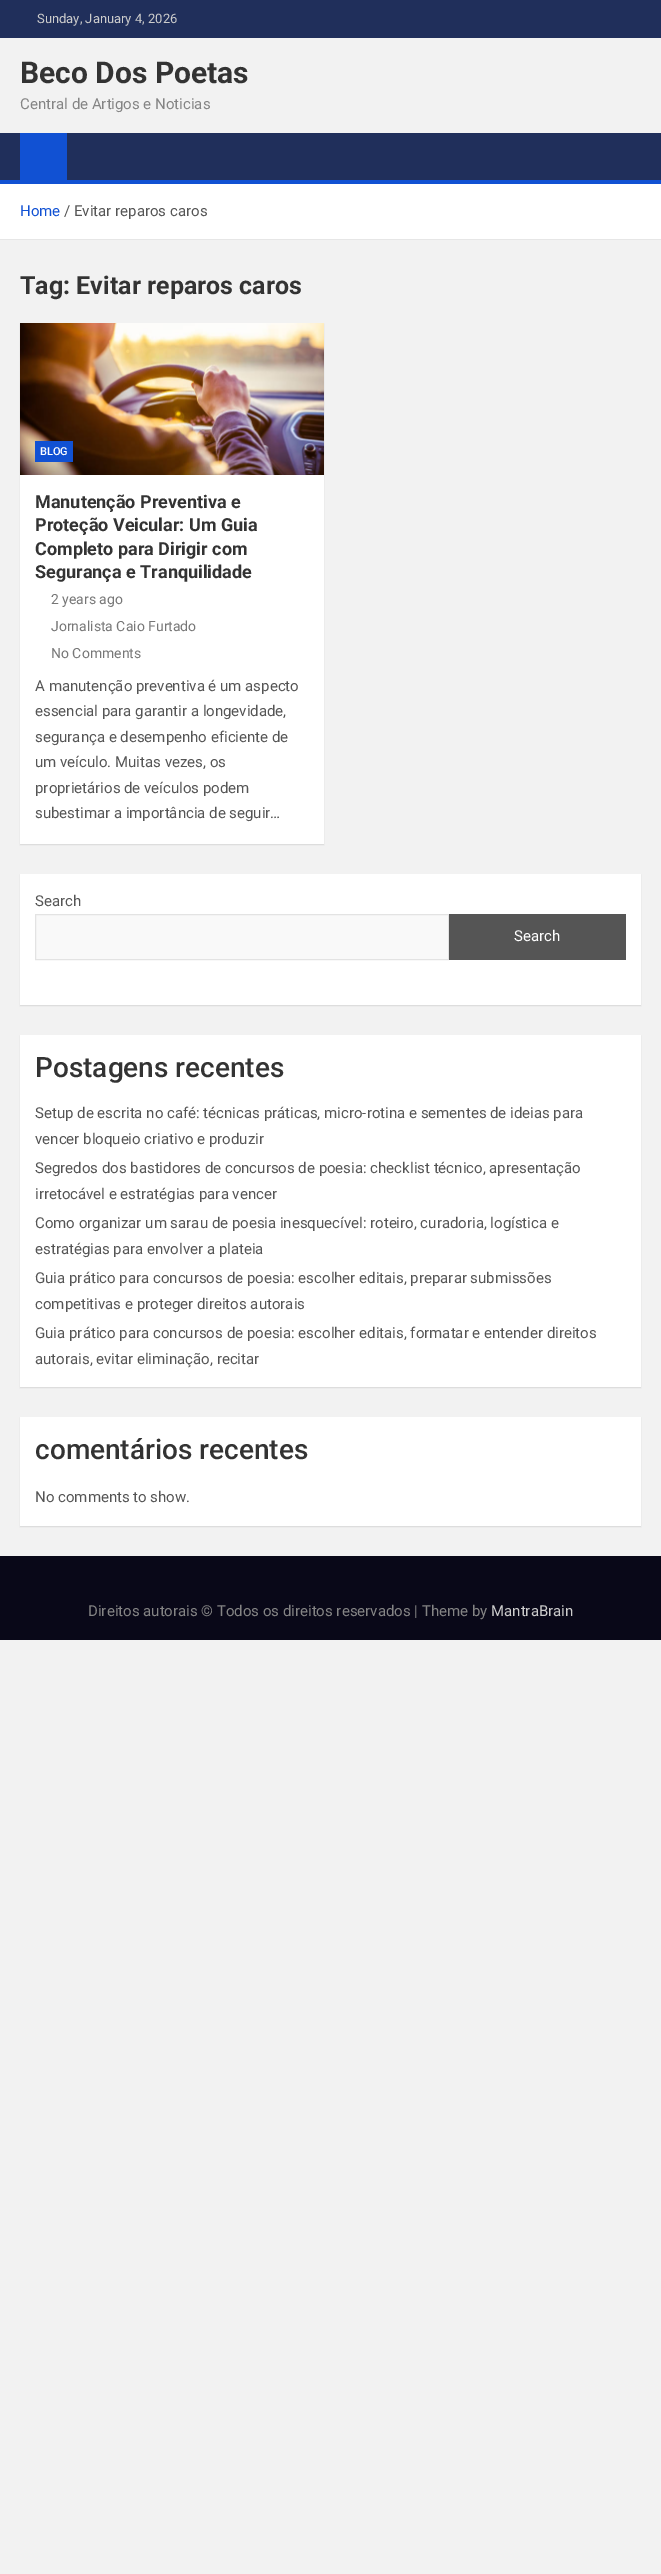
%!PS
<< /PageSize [661 2574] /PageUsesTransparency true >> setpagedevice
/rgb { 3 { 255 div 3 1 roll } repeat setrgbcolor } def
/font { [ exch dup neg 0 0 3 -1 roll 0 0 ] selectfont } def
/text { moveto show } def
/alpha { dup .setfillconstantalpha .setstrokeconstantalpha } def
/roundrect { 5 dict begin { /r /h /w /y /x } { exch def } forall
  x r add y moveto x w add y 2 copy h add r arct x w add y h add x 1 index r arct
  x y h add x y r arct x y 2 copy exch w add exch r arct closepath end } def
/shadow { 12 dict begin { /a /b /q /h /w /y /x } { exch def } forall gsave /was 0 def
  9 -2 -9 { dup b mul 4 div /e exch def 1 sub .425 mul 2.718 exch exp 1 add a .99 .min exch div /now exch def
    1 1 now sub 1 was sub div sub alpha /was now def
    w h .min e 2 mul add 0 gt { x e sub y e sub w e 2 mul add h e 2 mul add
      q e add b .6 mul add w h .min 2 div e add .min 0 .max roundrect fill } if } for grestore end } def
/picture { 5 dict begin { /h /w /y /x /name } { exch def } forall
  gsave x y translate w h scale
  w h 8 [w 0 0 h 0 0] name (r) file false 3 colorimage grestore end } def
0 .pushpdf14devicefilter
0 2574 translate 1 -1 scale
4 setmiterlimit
242 242 242 rgb
0 0 661 2574 rectfill
32 47 91 rgb
0 0 661 38 rectfill
0 133 661 47 rectfill
17 81 211 rgb
20 133 47 47 rectfill
0 180 661 4 rectfill
255 255 255 rgb
0 184 661 55 rectfill
230 230 230 rgb
0 239 661 1 rectfill
0 0 0 rgb
20 324 304 521 0 0.5 0.1 shadow
255 255 255 rgb
20 475 304 369 rectfill
(img_01.rgb) 20 323 304 152 picture
17 81 211 rgb
35 441 38 21 rectfill
0 0 0 rgb
20 875 621 131 0 0.5 0.1 shadow
255 255 255 rgb
20 874 621 131 rectfill
249 249 249 rgb
35.5 914.5 moveto 413 0 rlineto 0 45 rlineto -413 0 rlineto closepath gsave fill grestore
227 227 227 rgb
stroke
85 85 85 rgb
449 914 177 46 rectfill
0 0 0 rgb
20 1036 621 352 0 0.5 0.1 shadow
255 255 255 rgb
20 1035 621 352 rectfill
0 0 0 rgb
20 1418 621 109 0 0.5 0.1 shadow
255 255 255 rgb
20 1417 621 109 rectfill
9 8 24 rgb
0 1556 661 84 rectfill
/Roboto-Regular 13 font
204 204 204 rgb
(Sunday, January 4, 2026) 37 23 text
/Roboto-Bold 30 font
51 51 51 rgb
(Beco Dos Poetas) 20 83 text
/Roboto-Regular 15 font
132 132 132 rgb
(Central de Artigos e Noticias) 20 109 text
17 81 211 rgb
(Home) 20 216 text
85 85 85 rgb
(/ Evitar reparos caros) 64 216 text
/Roboto-Bold 25 font
51 51 51 rgb
(Tag: Evitar reparos caros) 20 294 text
/Roboto-Medium 11 font
255 255 255 rgb
(BLOG) 40 455 text
/Roboto-Bold 18 font
51 51 51 rgb
(Manutenção Preventiva e) 35 508 text
(Proteção Veicular: Um Guia) 35 531 text
(Completo para Dirigir com) 35 555 text
(Segurança e Tranquilidade) 35 578 text
/Roboto-Regular 14 font
119 119 119 rgb
(2 years ago) 51 604 text
(Jornalista Caio Furtado) 51 631 text
(No Comments) 51 658 text
/Roboto-Regular 15 font
85 85 85 rgb
(A manutenção preventiva é um aspecto) 35 691 text
(essencial para garantir a longevidade,) 35 716 text
(segurança e desempenho eficiente de) 35 742 text
(um veículo. Muitas vezes, os) 35 767 text
(proprietários de veículos podem) 35 793 text
(subestimar a importância de seguir…) 35 818 text
(Search) 35 906 text
255 255 255 rgb
(Search) 514 941 text
/Roboto-Medium 28 font
51 51 51 rgb
(Postagens recentes) 35 1077 text
/Roboto-Regular 15 font
85 85 85 rgb
(Setup de escrita no café: técnicas práticas, micro-rotina e sementes de ideias para) 35 1118 text
(vencer bloqueio criativo e produzir) 35 1144 text
(Segredos dos bastidores de concursos de poesia: checklist técnico, apresentação) 35 1173 text
(irretocável e estratégias para vencer) 35 1199 text
(Como organizar um sarau de poesia inesquecível: roteiro, curadoria, logística e) 35 1228 text
(estratégias para envolver a plateia) 35 1254 text
(Guia prático para concursos de poesia: escolher editais, preparar submissões) 35 1283 text
(competitivas e proteger direitos autorais) 35 1309 text
(Guia prático para concursos de poesia: escolher editais, formatar e entender direitos) 35 1338 text
(autorais, evitar eliminação, recitar) 35 1364 text
/Roboto-Medium 28 font
51 51 51 rgb
(comentários recentes) 35 1459 text
/Roboto-Regular 15 font
85 85 85 rgb
(No comments to show.) 35 1502 text
132 132 132 rgb
(Direitos autorais © Todos os direitos reservados | Theme by) 88 1616 text
204 204 204 rgb
(MantraBrain) 491 1616 text
.poppdf14devicefilter showpage
